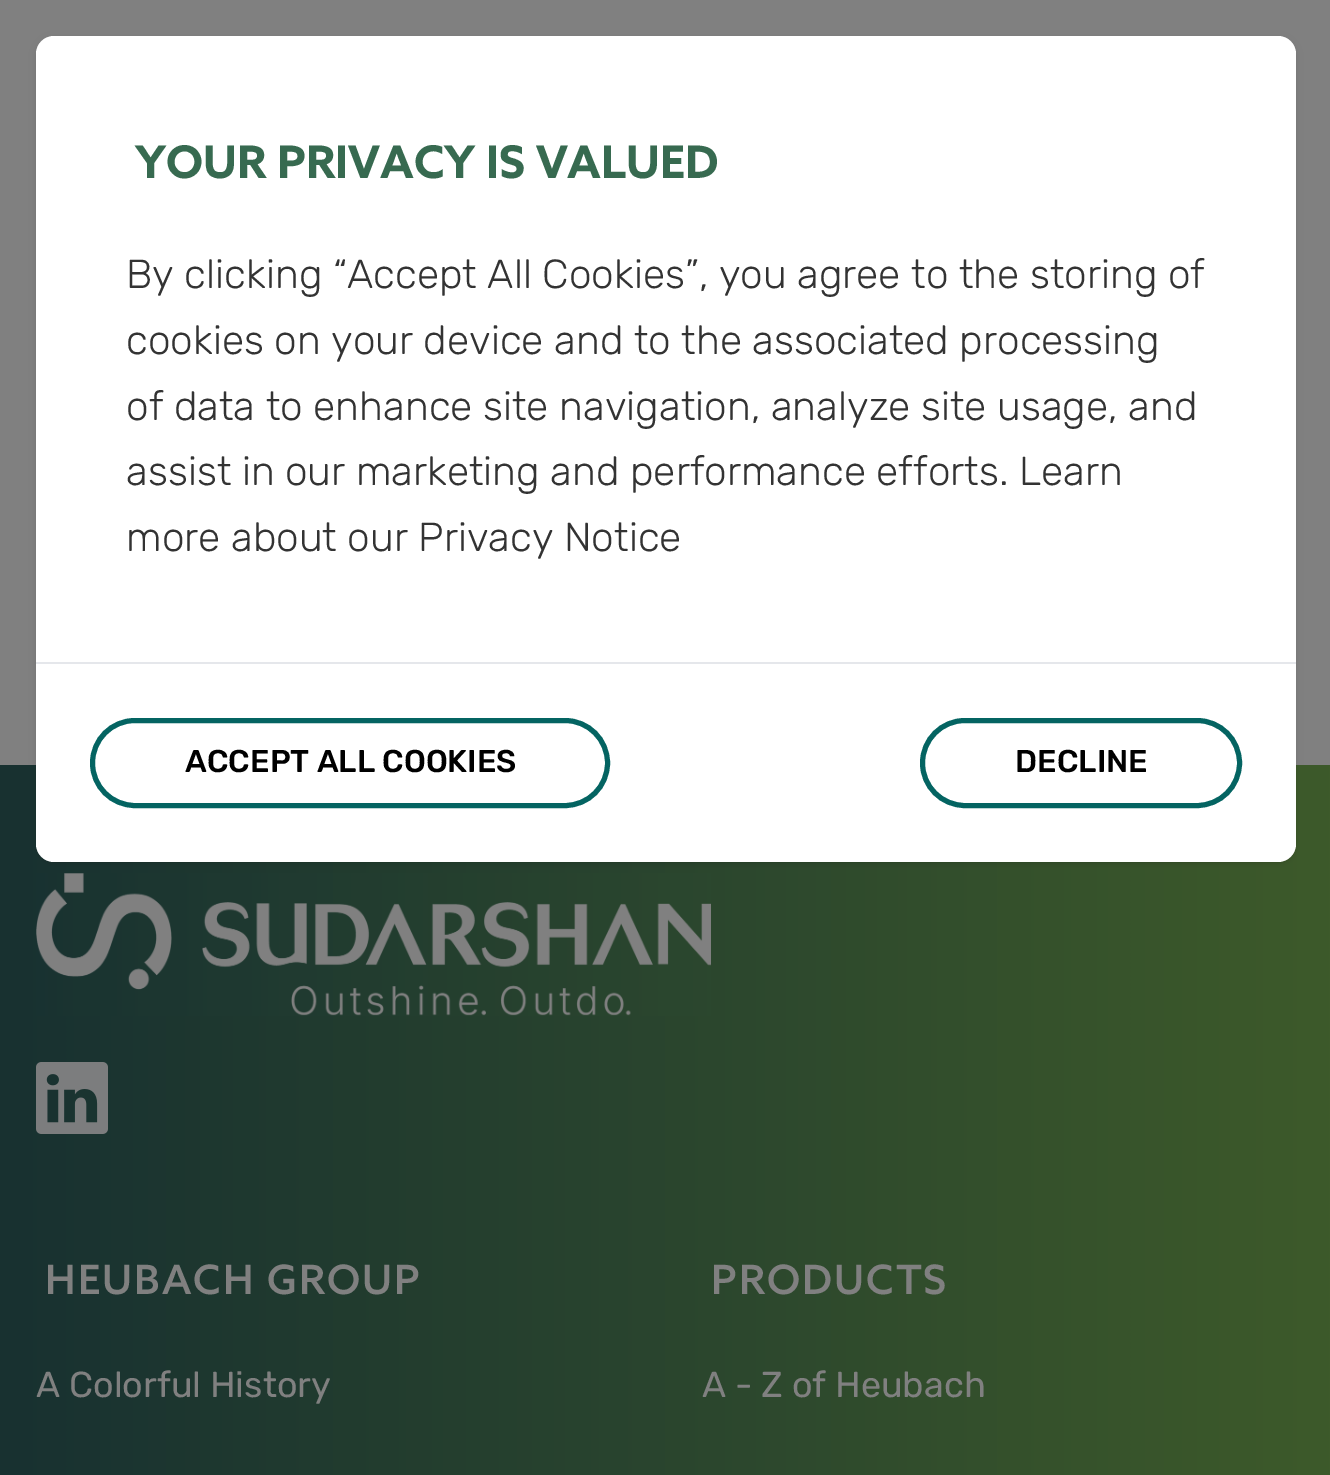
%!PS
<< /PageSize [1330 1475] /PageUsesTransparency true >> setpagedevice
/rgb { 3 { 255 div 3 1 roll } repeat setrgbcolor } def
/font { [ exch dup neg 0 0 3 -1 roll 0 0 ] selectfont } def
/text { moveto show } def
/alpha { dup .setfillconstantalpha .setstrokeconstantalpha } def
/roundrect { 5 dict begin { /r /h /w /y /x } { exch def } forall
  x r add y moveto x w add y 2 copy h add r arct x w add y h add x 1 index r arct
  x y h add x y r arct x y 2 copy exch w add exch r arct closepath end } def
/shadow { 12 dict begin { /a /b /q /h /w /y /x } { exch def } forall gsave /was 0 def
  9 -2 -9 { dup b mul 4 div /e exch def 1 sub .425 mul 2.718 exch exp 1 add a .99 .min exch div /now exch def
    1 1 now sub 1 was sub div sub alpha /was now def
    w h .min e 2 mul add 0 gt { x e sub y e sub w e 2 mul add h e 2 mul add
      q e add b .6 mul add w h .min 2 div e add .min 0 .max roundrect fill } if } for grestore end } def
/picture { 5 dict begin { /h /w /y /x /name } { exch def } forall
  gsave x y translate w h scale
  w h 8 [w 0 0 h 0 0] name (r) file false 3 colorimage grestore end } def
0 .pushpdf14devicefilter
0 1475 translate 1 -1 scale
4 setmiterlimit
128 128 128 rgb
0 0 1330 1475 rectfill
gsave 0 765 moveto 1330 0 rlineto 0 710 rlineto -1330 0 rlineto closepath clip newpath
<< /ShadingType 2 /ColorSpace /DeviceRGB /Coords [0 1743 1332 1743] /Extend [true true] /Function << /FunctionType 2 /Domain [0 1] /C0 [0.094 0.192 0.192] /C1 [0.239 0.353 0.165] /N 1 >> >> shfill grestore
0 0 0 rgb
38 41 1256 821 16 2 0.1 shadow
(img_01.rgb) 36 873 675 143 picture
36 38 1260 826 18 3.5 0.1 shadow
255 255 255 rgb
36 36 1260 826 18 roundrect fill
229 231 235 rgb
36 662 1260 2 rectfill
4 100 98 rgb
5 setlinewidth
92.5 720.5 515 85 42.5 roundrect stroke
922.5 720.5 317 85 42.5 roundrect stroke
(img_02.rgb) 36 1062 72 72 picture
/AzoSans-Bold 45 font
55 106 80 rgb
(YOUR PRIVACY IS VALUED) 135 178 text
/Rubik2-Light 40.5 font
51 51 51 rgb
(By clicking “Accept All Cookies”, you agree to the storing of) 126 288 text
(cookies on your device and to the associated processing) 126 354 text
(of data to enhance site navigation, analyze site usage, and) 126 420 text
(assist in our marketing and performance efforts. Learn) 126 485 text
(more about our Privacy Notice) 126 551 text
/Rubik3-Light 31.5 font
0 0 0 rgb
(ACCEPT ALL COOKIES) 185 772 text
(DECLINE) 1015 772 text
/AzoSans-Medium 40.5 font
128 128 128 rgb
45 1294 moveto 2 0 (HEUBACH GROUP) ashow
/Rubik-Light 36 font
(A Colorful History) 36 1397 text
/AzoSans-Medium 40.5 font
711 1294 moveto 2 0 (PRODUCTS) ashow
/Rubik-Light 36 font
(A - Z of Heubach) 702 1397 text
.poppdf14devicefilter showpage
